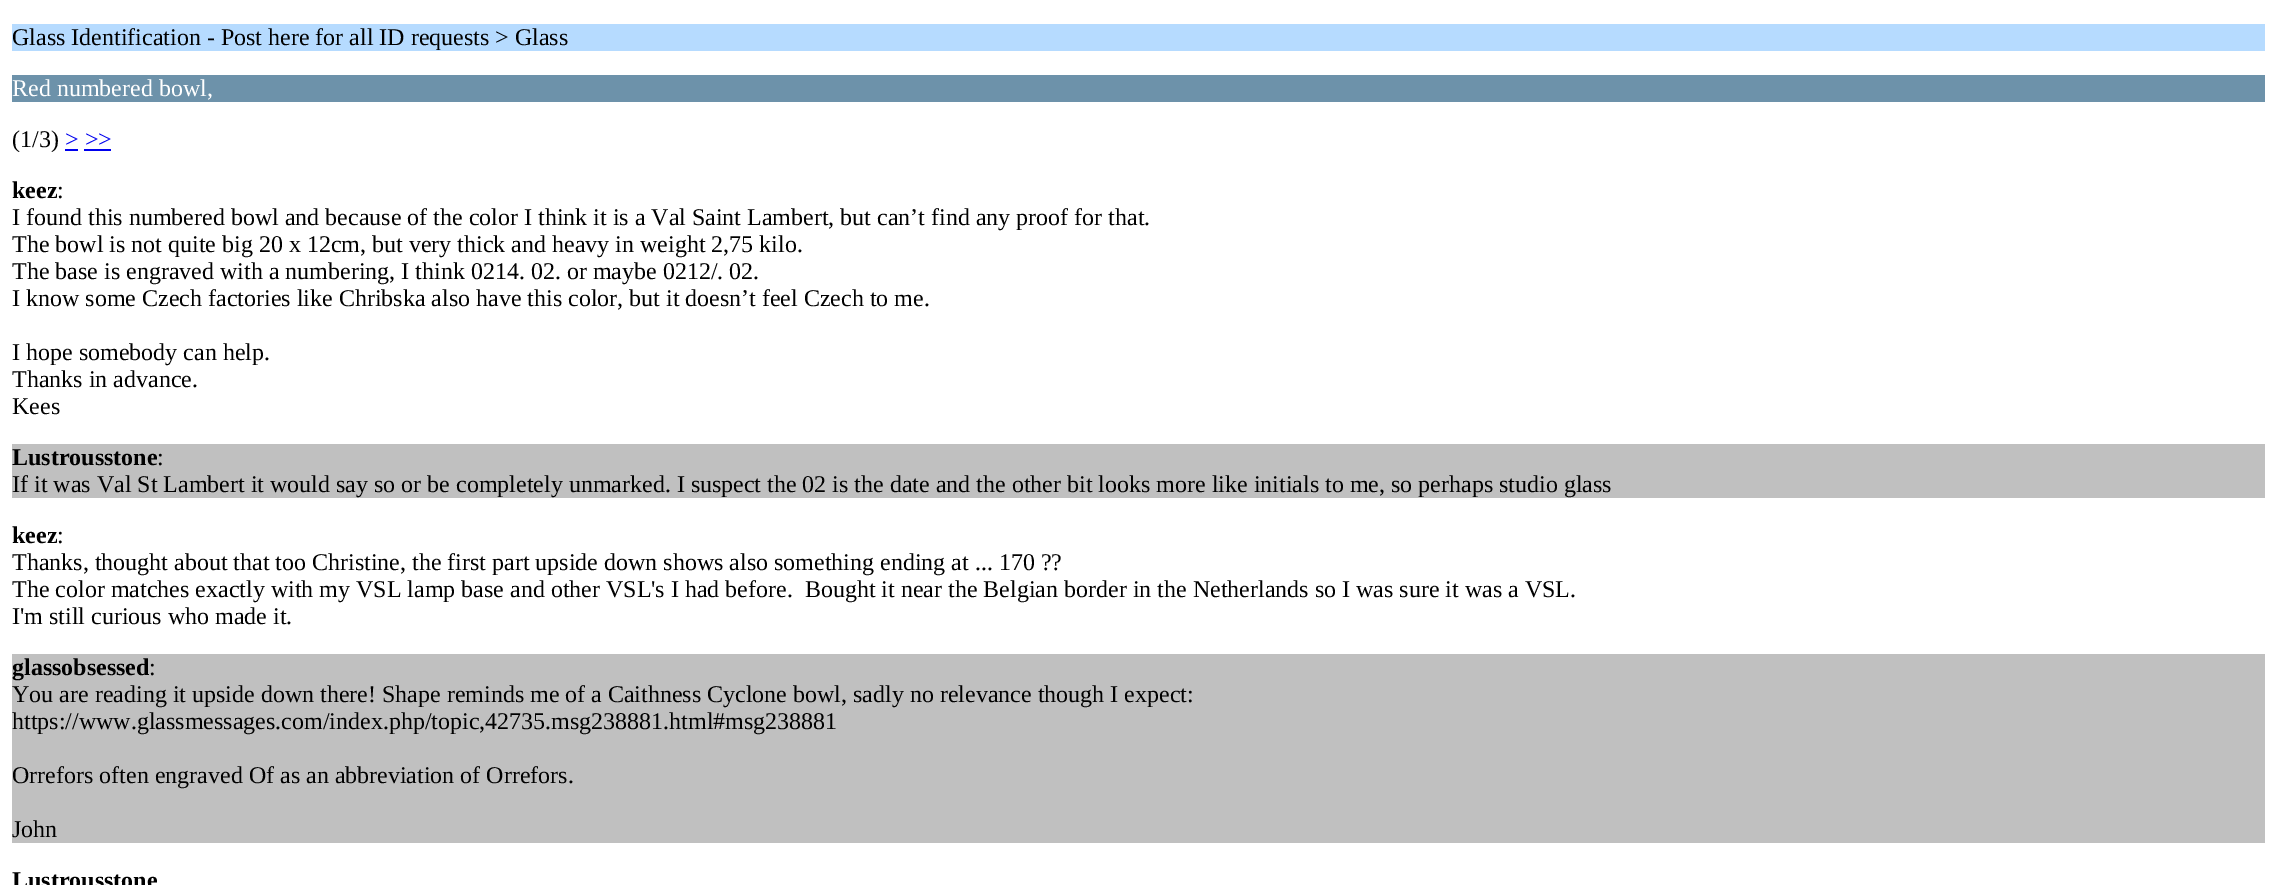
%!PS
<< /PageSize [2276 885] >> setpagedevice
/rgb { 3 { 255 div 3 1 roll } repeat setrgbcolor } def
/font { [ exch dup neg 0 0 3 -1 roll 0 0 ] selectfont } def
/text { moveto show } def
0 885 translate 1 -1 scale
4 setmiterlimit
255 255 255 rgb
0 0 2276 885 rectfill
182 219 255 rgb
12 24 2253 27 rectfill
109 146 170 rgb
12 75 2253 27 rectfill
0 0 238 rgb
65 149 13 2 rectfill
84 149 27 2 rectfill
192 192 192 rgb
12 444 2253 54 rectfill
12 654 2253 189 rectfill
/LiberationSerif-Regular 24 font
0 0 0 rgb
(Glass Identification - Post here for all ID requests > Glass) 12 45 text
255 255 255 rgb
(Red numbered bowl,) 12 96 text
0 0 0 rgb
(\(1/3\)) 12 147 text
0 0 238 rgb
(> >>) 65 147 text
/LiberationSerif-Bold 24 font
0 0 0 rgb
(keez) 12 198 text
/LiberationSerif-Regular 24 font
(:) 57 198 text
(I found this numbered bowl and because of the color I think it is a Val Saint Lambert, but can’t find any proof for that.) 12 225 text
(The bowl is not quite big 20 x 12cm, but very thick and heavy in weight 2,75 kilo.) 12 252 text
(The base is engraved with a numbering, I think 0214. 02. or maybe 0212/. 02.) 12 279 text
(I know some Czech factories like Chribska also have this color, but it doesn’t feel Czech to me.) 12 306 text
(I hope somebody can help.) 12 360 text
(Thanks in advance.) 12 387 text
(Kees) 12 414 text
/LiberationSerif-Bold 24 font
(Lustrousstone) 12 465 text
/LiberationSerif-Regular 24 font
(:) 157 465 text
(If it was Val St Lambert it would say so or be completely unmarked. I suspect the 02 is the date and the other bit looks more like initials to me, so perhaps studio glass) 12 492 text
/LiberationSerif-Bold 24 font
(keez) 12 543 text
/LiberationSerif-Regular 24 font
(:) 57 543 text
(Thanks, thought about that too Christine, the first part upside down shows also something ending at ... 170 ??) 12 570 text
(The color matches exactly with my VSL lamp base and other VSL's I had before.  Bought it near the Belgian border in the Netherlands so I was sure it was a VSL.) 12 597 text
(I'm still curious who made it.) 12 624 text
/LiberationSerif-Bold 24 font
(glassobsessed) 12 675 text
/LiberationSerif-Regular 24 font
(:) 149 675 text
(You are reading it upside down there! Shape reminds me of a Caithness Cyclone bowl, sadly no relevance though I expect:) 12 702 text
(https://www.glassmessages.com/index.php/topic,42735.msg238881.html#msg238881) 12 729 text
(Orrefors often engraved Of as an abbreviation of Orrefors.) 12 783 text
(John) 12 837 text
/LiberationSerif-Bold 24 font
(Lustrousstone) 12 888 text
showpage
